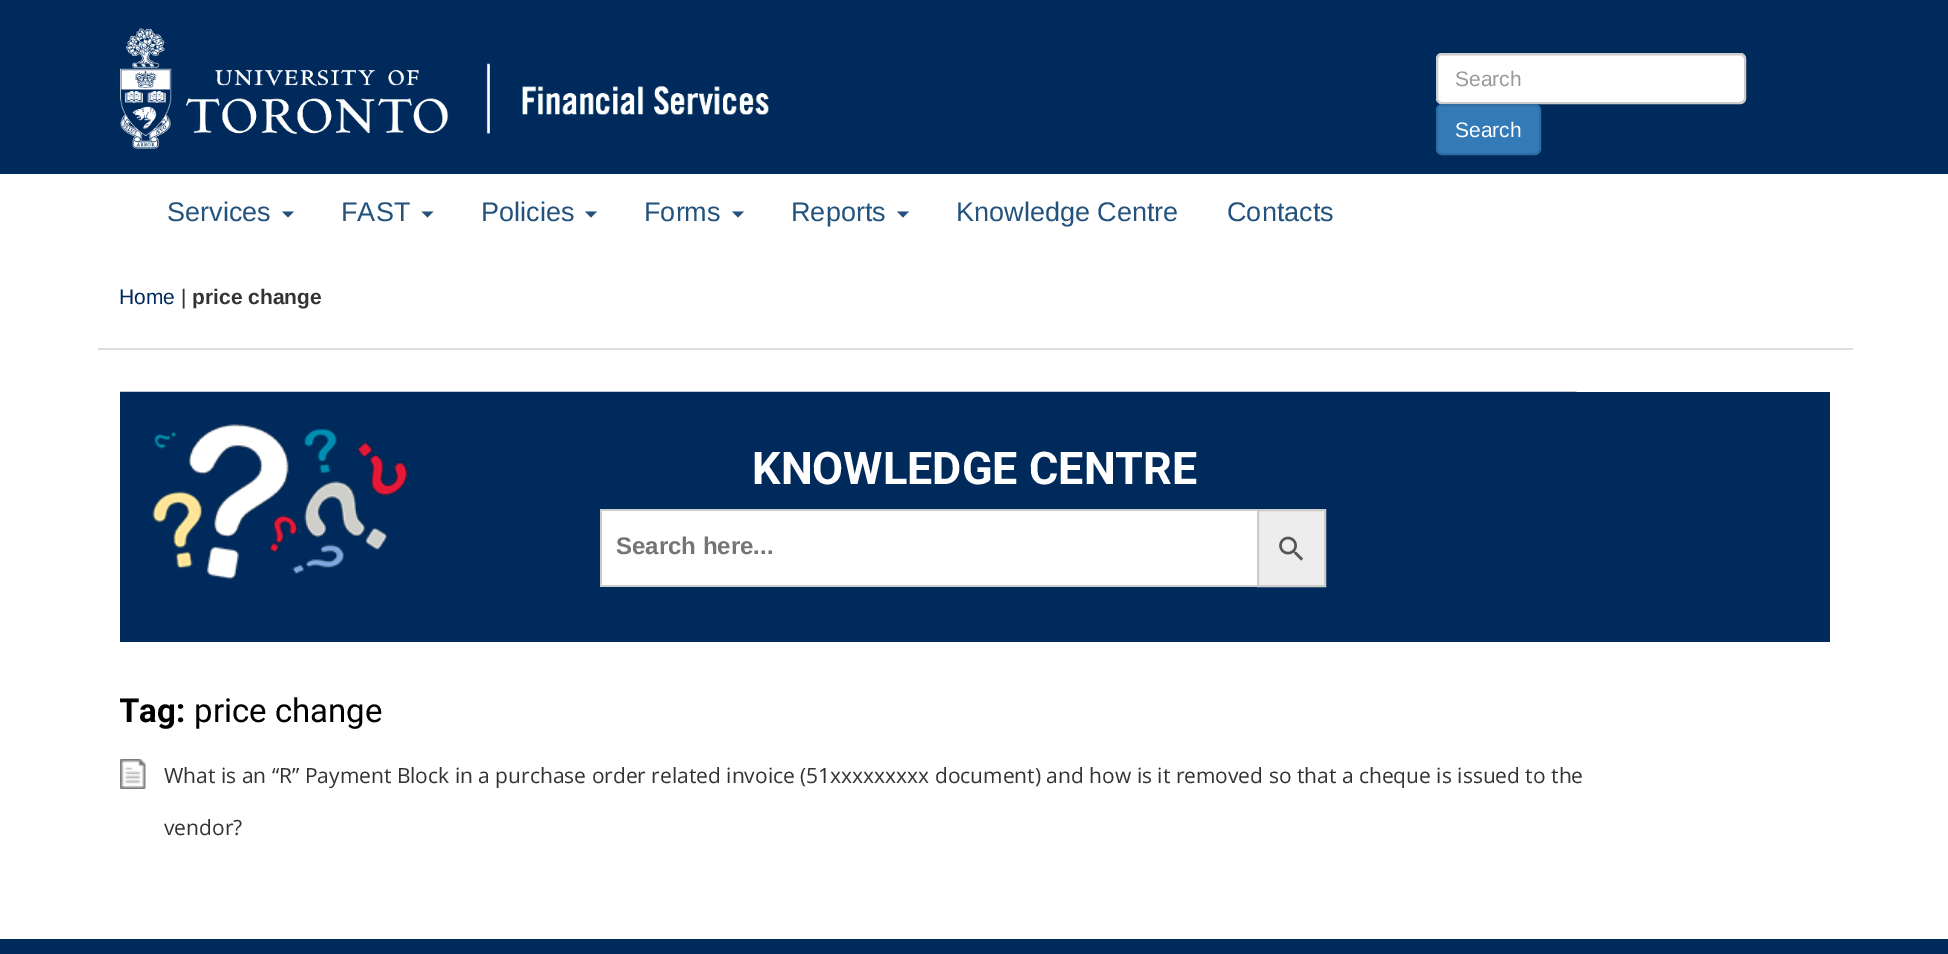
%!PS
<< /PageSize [1948 954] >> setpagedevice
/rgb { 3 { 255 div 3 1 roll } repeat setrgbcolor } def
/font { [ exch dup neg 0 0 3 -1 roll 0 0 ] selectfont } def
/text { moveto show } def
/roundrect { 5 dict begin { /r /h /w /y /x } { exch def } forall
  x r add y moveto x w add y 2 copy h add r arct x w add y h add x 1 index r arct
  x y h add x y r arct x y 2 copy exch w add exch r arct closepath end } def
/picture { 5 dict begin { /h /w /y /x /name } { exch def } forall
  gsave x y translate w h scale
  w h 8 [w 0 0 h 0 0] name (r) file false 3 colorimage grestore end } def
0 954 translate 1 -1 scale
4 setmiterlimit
255 255 255 rgb
0 0 1948 954 rectfill
0 42 92 rgb
0 0 1948 174 rectfill
(img_01.rgb) 120 28 370 121 picture
(img_02.rgb) 522 86 247 29 picture
255 255 255 rgb
1436 53 310 51 6 roundrect fill
236 236 236 rgb
1442 56 moveto 298 0 rlineto 2 0 4 2 4 4 rcurveto 0 40 rlineto 1 -1 1 -2 1 -3 rcurveto 0 -38 rlineto 0 -3 -2 -5 -5 -5 rcurveto -298 0 rlineto -3 0 -5 2 -5 5 rcurveto 0 1 rlineto 0 -2 2 -4 5 -4 rcurveto closepath fill
204 204 204 rgb
2 setlinewidth
1437 54 308 49 5 roundrect stroke
51 122 183 rgb
1437 105 103 49 5 roundrect gsave fill grestore
46 109 164 rgb
stroke
35 82 124 rgb
282 211.5 moveto 12 0 rlineto -6 6 rlineto closepath fill
421.5 211.5 moveto 12 0 rlineto -6 6 rlineto closepath fill
585 211.5 moveto 12 0 rlineto -6 6 rlineto closepath fill
732 211.5 moveto 12 0 rlineto -6 6 rlineto closepath fill
897 211.5 moveto 12 0 rlineto -6 6 rlineto closepath fill
221 221 221 rgb
98 348 1755 2 rectfill
0 42 92 rgb
120 392 1710 250 rectfill
(img_03.rgb) 120 391 1457 189 picture
255 255 255 rgb
602 511 655 74 rectfill
204 204 204 rgb
600 509 657 2 rectfill
600 585 657 2 rectfill
600 509 2 78 rectfill
237 237 237 rgb
1258 510 moveto 67 0 rlineto 0 76 rlineto -67 0 rlineto closepath gsave fill grestore
204 204 204 rgb
stroke
(img_04.rgb) 1279 536 25 25 picture
(img_05.rgb) 120 759 26 30 picture
0 42 92 rgb
0 939 1948 15 rectfill
/LiberationSans-Regular 21 font
153 153 153 rgb
(Search) 1455 86 text
255 255 255 rgb
(Search) 1455 137 text
/LiberationSans-Regular 27 font
35 82 124 rgb
(Services) 167 221 text
(FAST) 341 221 text
(Policies) 481 221 text
(Forms) 644 221 text
(Reports) 791 221 text
(Knowledge Centre) 956 221 text
(Contacts) 1227 221 text
/LiberationSans-Regular 21 font
0 42 92 rgb
(Home) 119 304 text
51 51 51 rgb
(|) 181 304 text
/LiberationSans-Bold 21 font
(price change) 192 304 text
/Roboto-Bold 45 font
255 255 255 rgb
(KNOWLEDGE CENTRE) 752 484 text
/LiberationSans-Bold 24 font
117 117 117 rgb
(Search here...) 616 554 text
gsave
120 392 1710 474 rectclip
/Roboto-Bold 33 font
0 0 0 rgb
(Tag:) 119 722 text
grestore
/Roboto-Regular 33 font
0 0 0 rgb
(price change) 194 722 text
/OpenSans-Regular 21 font
51 51 51 rgb
(What is an “R” Payment Block in a purchase order related invoice \(51xxxxxxxxx document\) and how is it removed so that a cheque is issued to the) 164 783 text
(vendor?) 164 835 text
showpage
